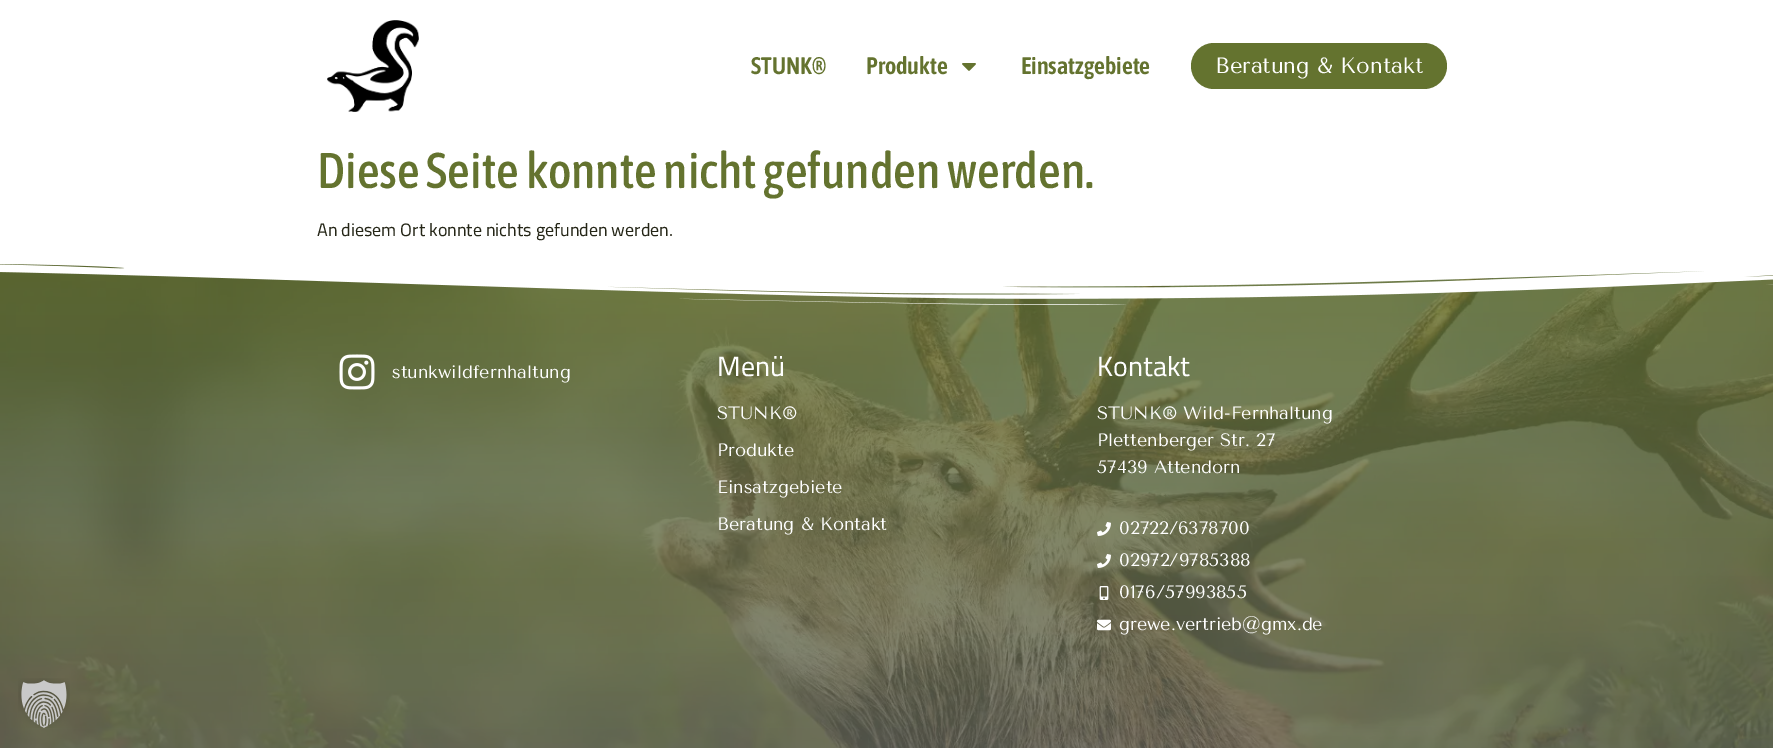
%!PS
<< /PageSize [1773 748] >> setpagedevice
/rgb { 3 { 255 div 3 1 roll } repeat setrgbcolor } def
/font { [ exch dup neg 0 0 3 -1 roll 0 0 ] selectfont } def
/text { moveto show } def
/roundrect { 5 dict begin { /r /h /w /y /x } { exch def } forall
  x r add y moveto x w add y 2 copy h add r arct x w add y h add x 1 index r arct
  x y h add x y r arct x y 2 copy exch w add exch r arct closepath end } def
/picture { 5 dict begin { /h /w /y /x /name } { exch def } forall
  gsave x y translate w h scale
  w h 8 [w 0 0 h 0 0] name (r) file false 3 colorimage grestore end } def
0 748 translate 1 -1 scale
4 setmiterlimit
255 255 255 rgb
0 0 1773 748 rectfill
(img_01.rgb) 327 20 92 92 picture
(img_02.rgb) 962 63 14 8 picture
100 115 47 rgb
1191 43 256 46 23 roundrect fill
(img_03.rgb) 0 264 1773 484 picture
(img_04.rgb) 0 257 1773 48 picture
(img_05.rgb) 339 354 36 36 picture
(img_06.rgb) 1097 522 14 14 picture
(img_07.rgb) 1097 554 14 14 picture
(img_08.rgb) 1099 586 10 14 picture
(img_09.rgb) 1097 619 14 12 picture
(img_10.rgb) 18 678 52 50 picture
/AsapCondensed-SemiBold 24 font
(STUNK®) 751 74 text
(Produkte) 866 74 text
(Einsatzgebiete) 1021 74 text
/TenorSans-Regular 22 font
255 255 255 rgb
(Beratung & Kontakt) 1215 73 text
/AsapCondensed-Medium 50 font
100 115 47 rgb
(Diese Seite konnte nicht gefunden werden.) 317 188 text
/Cairo-Regular 18 font
37 38 23 rgb
(An diesem Ort konnte nichts gefunden werden.) 317 236 text
/TenorSans-Regular 18 font
255 255 255 rgb
(stunkwildfernhaltung) 392 378 text
/Cairo-Regular 28 font
(Menü) 717 376 text
/TenorSans-Regular 18 font
(STUNK®) 717 419 text
(Produkte) 717 456 text
(Einsatzgebiete) 717 493 text
(Beratung & Kontakt) 717 530 text
/Cairo-Regular 28 font
(Kontakt) 1097 376 text
/TenorSans-Regular 18 font
(STUNK® Wild-Fernhaltung) 1097 419 text
(Plettenberger Str. 27) 1097 446 text
(57439 Attendorn) 1097 473 text
(02722/6378700) 1119 534 text
(02972/9785388) 1119 566 text
(0176/57993855) 1119 598 text
(grewe.vertrieb@gmx.de) 1119 630 text
showpage
